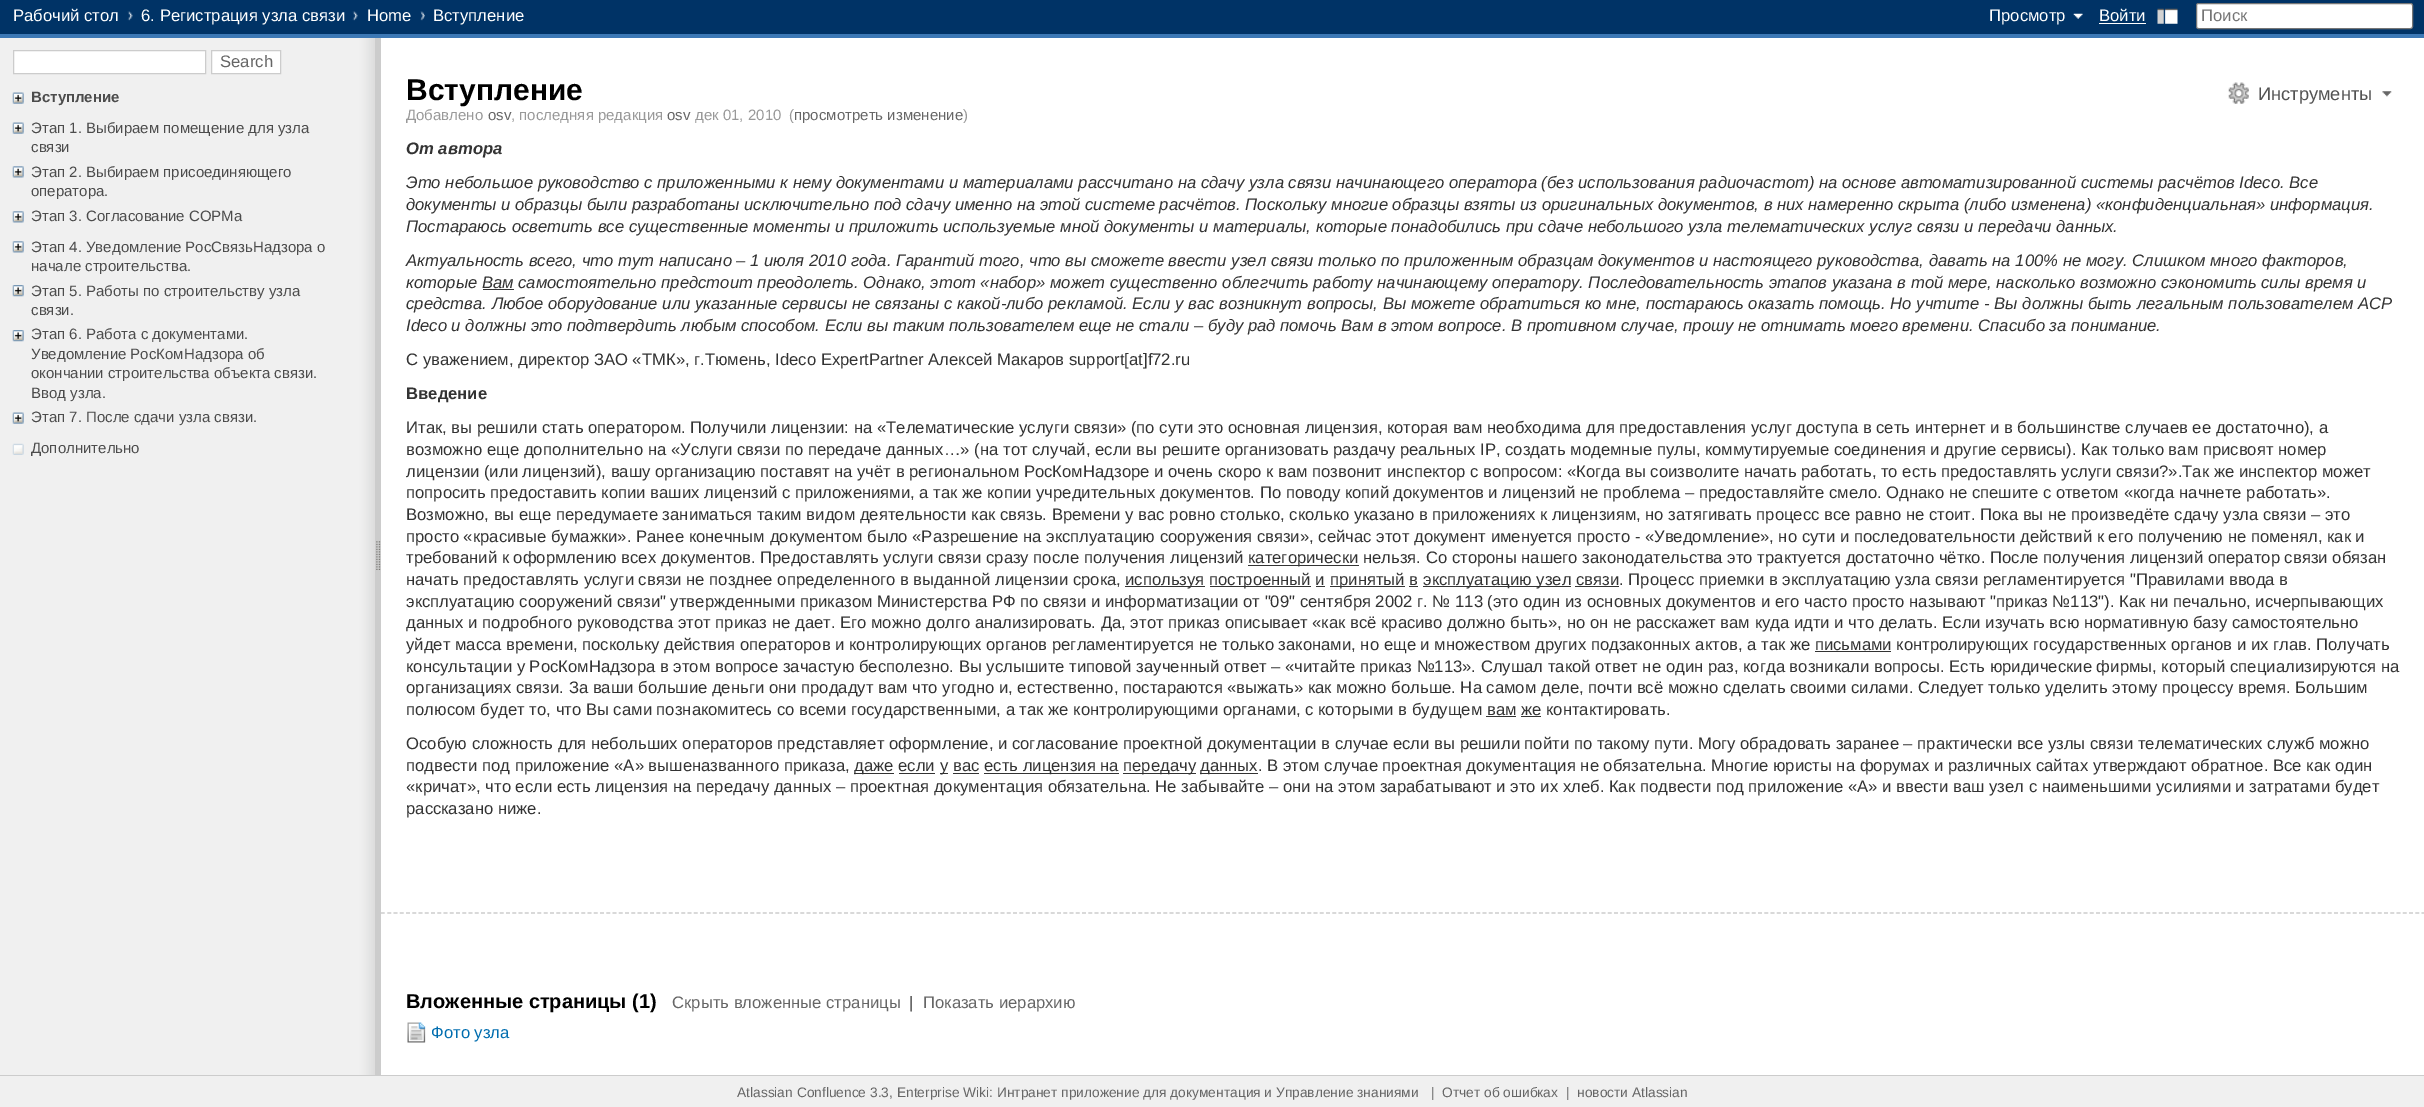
%!PS
<< /PageSize [2424 1107] >> setpagedevice
/rgb { 3 { 255 div 3 1 roll } repeat setrgbcolor } def
/font { [ exch dup neg 0 0 3 -1 roll 0 0 ] selectfont } def
/text { moveto show } def
/roundrect { 5 dict begin { /r /h /w /y /x } { exch def } forall
  x r add y moveto x w add y 2 copy h add r arct x w add y h add x 1 index r arct
  x y h add x y r arct x y 2 copy exch w add exch r arct closepath end } def
/picture { 5 dict begin { /h /w /y /x /name } { exch def } forall
  gsave x y translate w h scale
  w h 8 [w 0 0 h 0 0] name (r) file false 3 colorimage grestore end } def
0 1107 translate 1 -1 scale
4 setmiterlimit
255 255 255 rgb
0 0 2424 1107 rectfill
0 51 102 rgb
0 0 2424 34 rectfill
60 120 181 rgb
0 34 2424 4 rectfill
(img_01.rgb) 127 11 6 10 picture
(img_01.rgb) 352 11 6 10 picture
(img_02.rgb) 420 11 5 10 picture
(img_03.rgb) 2073 13 10 6 picture
255 255 255 rgb
2099 23 47 1 rectfill
(img_04.rgb) 2157 8 21 16 picture
2196.5 3.5 216 25 2 roundrect gsave fill grestore
118 118 118 rgb
stroke
240 240 240 rgb
0 38 350 1037 rectfill
(img_05.rgb) 350 38 25 1037 picture
255 255 255 rgb
13.5 50.5 moveto 192 0 rlineto 0 23 rlineto -192 0 rlineto closepath gsave fill grestore
204 204 204 rgb
stroke
255 255 255 rgb
211.5 50.5 moveto 69 0 rlineto 0 23 rlineto -69 0 rlineto closepath gsave fill grestore
204 204 204 rgb
stroke
(img_06.rgb) 12 92 12 12 picture
(img_06.rgb) 12 122 12 12 picture
(img_07.rgb) 12 166 12 12 picture
(img_07.rgb) 12 211 12 12 picture
(img_07.rgb) 12 241 12 12 picture
(img_08.rgb) 12 285 12 12 picture
(img_08.rgb) 12 330 12 12 picture
(img_06.rgb) 12 412 12 12 picture
(img_09.rgb) 12 443 12 12 picture
375 38 6 1037 rectfill
(img_10.rgb) 376 541 5 29 picture
(img_11.rgb) 2382 91 10 6 picture
(img_12.rgb) 2228 82 21 22 picture
51 51 51 rgb
483 289 31 1 rectfill
1248 565 111 1 rectfill
1125 586 80 1 rectfill
1210 586 101 1 rectfill
1330 586 75 1 rectfill
1423 586 148 1 rectfill
1316 586 9 1 rectfill
1409 586 9 1 rectfill
1575 586 44 1 rectfill
1815 651 76 1 rectfill
1486 716 30 1 rectfill
1521 716 20 1 rectfill
854 773 40 1 rectfill
940 773 8 1 rectfill
984 773 135 1 rectfill
1123 773 73 1 rectfill
1200 773 58 1 rectfill
899 773 36 1 rectfill
953 773 26 1 rectfill
204 204 204 rgb
1.2 setlinewidth
[3.75 2.51] 0 setdash
381 913 moveto 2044 0 rlineto stroke
(img_13.rgb) 407 1022 19 21 picture
240 240 240 rgb
0 1076 2424 31 rectfill
204 204 204 rgb
0 1075 2424 1 rectfill
/LiberationSans-Regular 16.67 font
255 255 255 rgb
(Рабочий стол) 13 21 text
(6. Регистрация узла связи) 141 21 text
(Home) 367 21 text
(Вступление) 433 21 text
(Просмотр) 1989 21 text
(Войти) 2099 21 text
117 117 117 rgb
(Поиск) 2201 21 text
102 102 102 rgb
(Search) 220 67 text
/LiberationSans-Bold 15 font
76 76 76 rgb
(Вступление) 31 102 text
/LiberationSans-Regular 15 font
(Этап 1. Выбираем помещение для узла) 31 133 text
(связи) 31 152 text
(Этап 2. Выбираем присоединяющего) 31 177 text
(оператора.) 31 196 text
(Этап 3. Согласование СОРМа) 31 221 text
(Этап 4. Уведомление РосСвязьНадзора о) 31 252 text
(начале строительства.) 31 271 text
(Этап 5. Работы по строительству узла) 31 296 text
(связи.) 31 315 text
(Этап 6. Работа с документами.) 31 339 text
(Уведомление РосКомНадзора об) 31 359 text
(окончании строительства объекта связи.) 31 378 text
(Ввод узла.) 31 398 text
(Этап 7. После сдачи узла связи.) 31 422 text
(Дополнительно) 31 453 text
/LiberationSans-Bold 30 font
0 0 0 rgb
(Вступление) 406 100 text
/LiberationSans-Regular 18.25 font
83 83 83 rgb
(Инструменты) 2258 100 text
/LiberationSans-Regular 15 font
153 153 153 rgb
(Добавлено) 406 120 text
102 102 102 rgb
(osv) 488 120 text
153 153 153 rgb
(, последняя редакция) 511 120 text
102 102 102 rgb
(osv) 667 120 text
153 153 153 rgb
(дек 01, 2010) 695 120 text
(\() 789 120 text
102 102 102 rgb
(просмотреть изменение) 794 120 text
153 153 153 rgb
(\)) 963 120 text
/LiberationSans-BoldItalic 16.67 font
51 51 51 rgb
(От автора) 406 154 text
/LiberationSans-Italic 16.67 font
(Это небольшое руководство с приложенными к нему документами и материалами рассчитано на сдачу узла связи начинающего оператора \(без использования радиочастот\) на основе автоматизированной системы расчётов Ideco. Все) 406 188 text
(документы и образцы были разработаны исключительно под сдачу именно на этой системе расчётов. Поскольку многие образцы взяты из оригинальных документов, в них намеренно скрыта \(либо изменена\) «конфиденциальная» информация.) 406 210 text
(Постараюсь осветить все существенные моменты и приложить используемые мной документы и материалы, которые понадобились при сдаче небольшого узла телематических услуг связи и передачи данных.) 406 232 text
(Актуальность всего, что тут написано – 1 июля 2010 года. Гарантий того, что вы сможете ввести узел связи только по приложенным образцам документов и настоящего руководства, давать на 100% не могу. Слишком много факторов,) 406 266 text
(которые Вам самостоятельно предстоит преодолеть. Однако, этот «набор» может существенно облегчить работу начинающему оператору. Последовательность этапов указана в той мере, насколько возможно сэкономить силы время и) 406 288 text
(средства. Любое оборудование или указанные сервисы не связаны с какой-либо рекламой. Если у вас возникнут вопросы, Вы можете обратиться ко мне, постараюсь оказать помощь. Но учтите - Вы должны быть легальным пользователем АСР) 406 309 text
(Ideco и должны это подтвердить любым способом. Если вы таким пользователем еще не стали – буду рад помочь Вам в этом вопросе. В противном случае, прошу не отнимать моего времени. Спасибо за понимание.) 406 331 text
/LiberationSans-Regular 16.67 font
(С уважением, директор ЗАО «ТМК», г.Тюмень, Ideco ExpertPartner Алексей Макаров support[at]f72.ru) 406 365 text
/LiberationSans-Bold 16.67 font
(Введение) 406 399 text
/LiberationSans-Regular 16.67 font
(Итак, вы решили стать оператором. Получили лицензии: на «Телематические услуги связи» \(по сути это основная лицензия, которая вам необходима для предоставления услуг доступа в сеть интернет и в большинстве случаев ее достаточно\), а) 406 433 text
(возможно еще дополнительно на «Услуги связи по передаче данных…» \(на тот случай, если вы решите организовать раздачу реальных IP, создать модемные пулы, коммутируемые соединения и другие сервисы\). Как только вам присвоят номер) 406 455 text
(лицензии \(или лицензий\), вашу организацию поставят на учёт в региональном РосКомНадзоре и очень скоро к вам позвонит инспектор с вопросом: «Когда вы соизволите начать работать, то есть предоставлять услуги связи?».Так же инспектор может) 406 477 text
(попросить предоставить копии ваших лицензий с приложениями, а так же копии учредительных документов. По поводу копий документов и лицензий не проблема – предоставляйте смело. Однако не спешите с ответом «когда начнете работать».) 406 498 text
(Возможно, вы еще передумаете заниматься таким видом деятельности как связь. Времени у вас ровно столько, сколько указано в приложениях к лицензиям, но затягивать процесс все равно не стоит. Пока вы не произведёте сдачу узла связи – это) 406 520 text
(просто «красивые бумажки». Ранее конечным документом было «Разрешение на эксплуатацию сооружения связи», сейчас этот документ именуется просто - «Уведомление», но сути и последовательности действий к его получению не поменял, как и) 406 542 text
(требований к оформлению всех документов. Предоставлять услуги связи сразу после получения лицензий) 406 563 text
(категорически нельзя. Со стороны нашего законодательства это трактуется достаточно чётко. После получения лицензий оператор связи обязан) 1248 563 text
(начать предоставлять услуги связи не позднее определенного в выданной лицензии срока,) 406 585 text
(используя) 1125 585 text
(построенный и) 1209 585 text
(принятый в) 1330 585 text
(эксплуатацию узел связи. Процесс приемки в эксплуатацию узла связи регламентируется "Правилами ввода в) 1423 585 text
(эксплуатацию сооружений связи" утвержденными приказом Министерства РФ по связи и информатизации от "09" сентября 2002 г. № 113 \(это один из основных документов и его часто просто называют "приказ №113"\). Как ни печально, исчерпывающих) 406 607 text
(данных и подробного руководства этот приказ не дает. Его можно долго анализировать. Да, этот приказ описывает «как всё красиво должно быть», но он не расскажет вам куда идти и что делать. Если изучать всю нормативную базу самостоятельно) 406 628 text
(уйдет масса времени, поскольку действия операторов и контролирующих органов регламентируется не только законами, но еще и множеством других подзаконных актов, а так же письмами контролирующих государственных органов и их глав. Получать) 406 650 text
(консультации у РосКомНадзора в этом вопросе зачастую бесполезно. Вы услышите типовой заученный ответ – «читайте приказ №113». Слушал такой ответ не один раз, когда возникали вопросы. Есть юридические фирмы, который специализируются на) 406 672 text
(организациях связи. За ваши большие деньги они продадут вам что угодно и, естественно, постараются «выжать» как можно больше. На самом деле, почти всё можно сделать своими силами. Следует только уделить этому процессу время. Большим) 406 693 text
(полюсом будет то, что Вы сами познакомитесь со всеми государственными, а так же контролирующими органами, с которыми в будущем вам же контактировать.) 406 715 text
(Особую сложность для небольших операторов представляет оформление, и согласование проектной документации в случае если вы решили пойти по такому пути. Могу обрадовать заранее – практически все узлы связи телематических служб можно) 406 749 text
(подвести под приложение «А» вышеназванного приказа,) 406 771 text
(даже если) 854 771 text
(у вас) 940 771 text
(есть лицензия на) 984 771 text
(передачу) 1123 771 text
(данных. В этом случае проектная документация не обязательна. Многие юристы на форумах и различных сайтах утверждают обратное. Все как один) 1200 771 text
(«кричат», что если есть лицензия на передачу данных – проектная документация обязательна. Не забывайте – они на этом зарабатывают и это их хлеб. Как подвести под приложение «А» и ввести ваш узел с наименьшими усилиями и затратами будет) 406 792 text
(рассказано ниже.) 406 814 text
/LiberationSans-Bold 20 font
0 0 0 rgb
(Вложенные страницы \(1\)) 406 1008 text
/LiberationSans-Regular 16.67 font
102 102 102 rgb
(Скрыть вложенные страницы) 672 1008 text
51 51 51 rgb
(|) 909 1008 text
102 102 102 rgb
(Показать иерархию) 923 1008 text
0 109 175 rgb
(Фото узла) 431 1038 text
/LiberationSans-Regular 13.75 font
102 102 102 rgb
(Atlassian Confluence 3.3, Enterprise Wiki: Интранет приложение для документация и Управление знаниями) 737 1097 text
(|) 1431 1097 text
(Отчет об ошибках) 1442 1097 text
(|) 1566 1097 text
(новости Atlassian) 1577 1097 text
showpage
